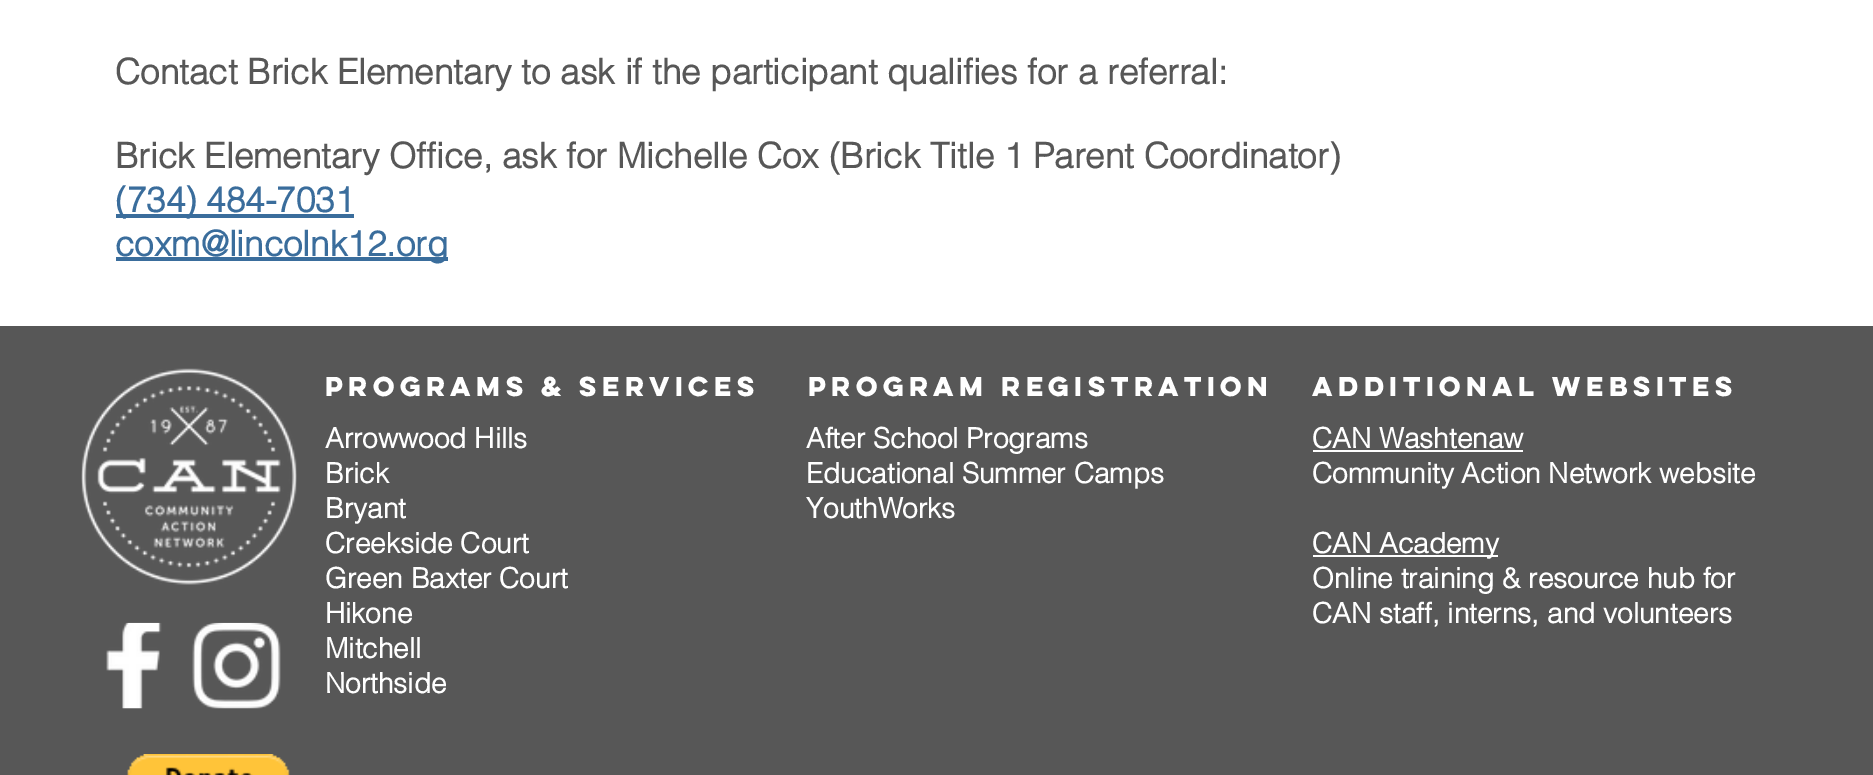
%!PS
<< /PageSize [1873 775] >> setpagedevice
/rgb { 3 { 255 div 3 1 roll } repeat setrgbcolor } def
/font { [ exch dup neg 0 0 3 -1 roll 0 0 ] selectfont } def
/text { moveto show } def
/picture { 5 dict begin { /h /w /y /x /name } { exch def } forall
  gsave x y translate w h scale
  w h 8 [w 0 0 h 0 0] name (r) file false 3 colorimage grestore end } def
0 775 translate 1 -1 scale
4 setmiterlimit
255 255 255 rgb
0 0 1873 775 rectfill
58 109 156 rgb
116 214 238 4 rectfill
116 257 332 4 rectfill
87 87 87 rgb
0 326 1873 449 rectfill
(img_01.rgb) 81 368 216 217 picture
255 255 255 rgb
1313 450 210 2 rectfill
1313 555 185 2 rectfill
(img_02.rgb) 106 622 56 87 picture
(img_03.rgb) 192 622 89 87 picture
(img_04.rgb) 127 754 163 21 picture
/helvetica-Bold 35 font
87 87 87 rgb
(Contact Brick Elementary to ask if the participant qualifies for a referral:) 115 84 text
(Brick Elementary Office, ask for Michelle Cox \(Brick Title 1 Parent Coordinator\)) 115 168 text
58 109 156 rgb
(\(734\) 484-7031) 115 212 text
(coxm@lincolnk12.org) 115 256 text
/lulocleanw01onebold-Bold 24.5 font
255 255 255 rgb
(Programs & Services) 325 396 text
(Program Registration) 808 396 text
(Additional Websites) 1312 396 text
/helvetica-Bold 28 font
(Arrowwood Hills) 325 448 text
(Brick) 325 483 text
(Bryant) 325 518 text
(Creekside Court) 325 553 text
(Green Baxter Court) 325 588 text
(Hikone) 325 623 text
(Mitchell) 325 658 text
(Northside) 325 693 text
(After School Programs) 806 448 text
(Educational Summer Camps) 806 483 text
(YouthWorks) 806 518 text
(CAN Washtenaw) 1312 448 text
(Community Action Network website) 1312 483 text
(CAN Academy) 1312 553 text
(Online training & resource hub for) 1312 588 text
(CAN staff, interns, and volunteers) 1312 623 text
showpage
